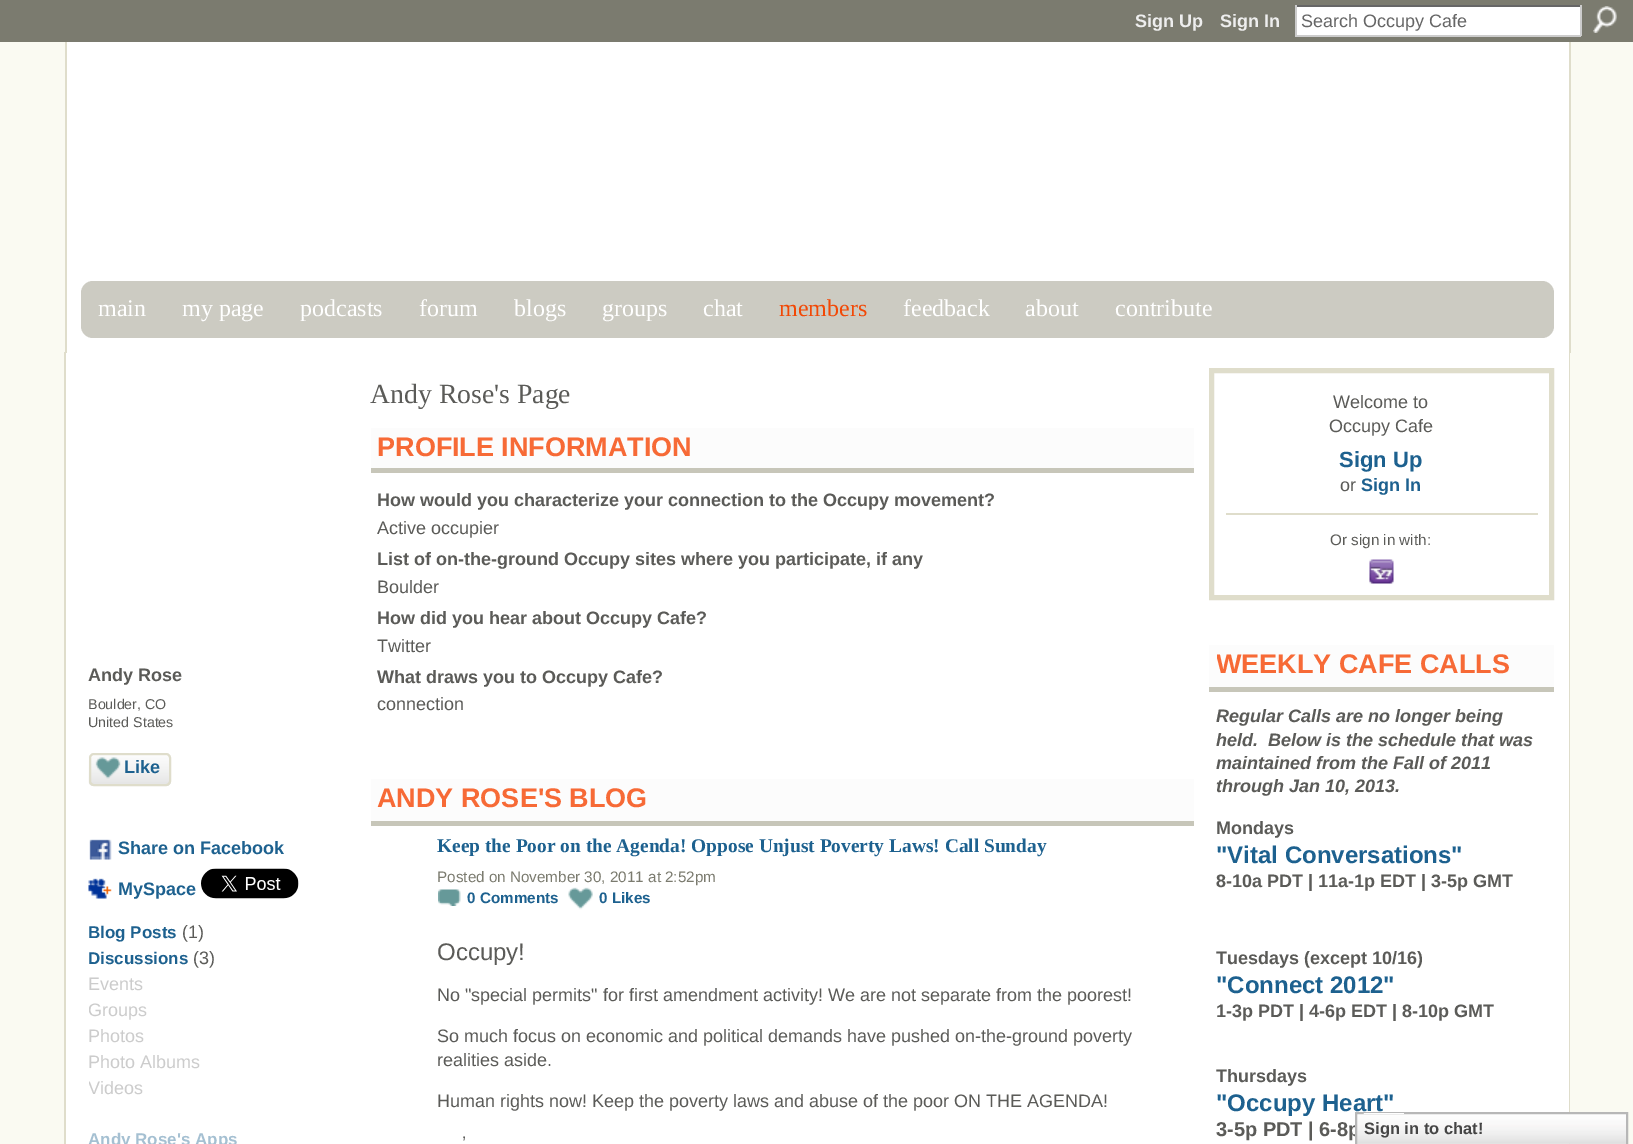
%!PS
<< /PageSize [1633 1144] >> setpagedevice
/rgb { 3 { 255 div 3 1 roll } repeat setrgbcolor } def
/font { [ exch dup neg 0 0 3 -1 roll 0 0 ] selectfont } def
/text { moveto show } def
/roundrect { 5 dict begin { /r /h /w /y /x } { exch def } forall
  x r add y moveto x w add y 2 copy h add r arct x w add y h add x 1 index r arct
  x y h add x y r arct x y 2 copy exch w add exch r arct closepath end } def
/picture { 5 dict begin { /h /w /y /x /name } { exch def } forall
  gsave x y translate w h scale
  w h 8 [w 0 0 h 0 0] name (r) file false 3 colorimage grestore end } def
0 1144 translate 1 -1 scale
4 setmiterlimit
250 250 242 rgb
0 0 1633 1144 rectfill
123 123 111 rgb
0 0 1633 42 rectfill
255 255 255 rgb
1297 7 283 28 rectfill
102 102 102 rgb
1295 5 286 2 rectfill
204 204 204 rgb
1580 5 2 31 rectfill
1295 35 286 2 rectfill
1295 5 2 31 rectfill
(img_01.rgb) 1593 6 24 27 picture
255 255 255 rgb
67 42 1502 311 rectfill
223 221 203 rgb
1569 42 2 311 rectfill
65 42 2 311 rectfill
204 203 194 rgb
81 281 1473 57 12 roundrect fill
255 255 255 rgb
66 353 1503 791 rectfill
223 221 203 rgb
64 352 moveto 1506 0 rlineto 0 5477 rlineto 0 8 -6 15 -14 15 rcurveto -1476 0 rlineto -9 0 -16 -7 -16 -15 rcurveto closepath 66 352 moveto 1503 0 rlineto 0 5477 rlineto 0 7 -6 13 -13 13 rcurveto -1476 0 rlineto -8 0 -14 -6 -14 -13 rcurveto closepath eofill
(img_02.rgb) 88 756 83 30 picture
2 setlinewidth
90 754 80 31 4 roundrect stroke
(img_03.rgb) 95 757 26 22 picture
(img_04.rgb) 89 839 23 21 picture
(img_05.rgb) 88 878 24 21 picture
(img_06.rgb) 201 868 98 31 picture
252 252 252 rgb
371 428 823 40 rectfill
199 198 185 rgb
371 468 823 5 rectfill
252 252 252 rgb
371 779 823 42 rectfill
199 198 185 rgb
371 821 823 5 rectfill
(img_07.rgb) 438 889 23 17 picture
(img_08.rgb) 568 887 25 23 picture
223 221 203 rgb
5 setlinewidth
1211.5 370.5 340 227 rectstroke
1226 513 312 2 rectfill
(img_09.rgb) 1369 559 25 25 picture
252 252 252 rgb
1209 645 345 42 rectfill
199 198 185 rgb
1209 687 345 5 rectfill
/LiberationSans-Bold 18 font
238 238 238 rgb
(Sign Up) 1135 27 text
(Sign In) 1220 27 text
/LiberationSans-Regular 18 font
102 102 102 rgb
(Search Occupy Cafe) 1301 27 text
/LiberationSerif-Regular 24 font
255 255 255 rgb
(main) 98 316 text
(my page) 182 316 text
(podcasts) 300 316 text
(forum) 419 316 text
(blogs) 514 316 text
(groups) 602 316 text
(chat) 703 316 text
242 72 5 rgb
(members) 779 316 text
255 255 255 rgb
(feedback) 903 316 text
(about) 1025 316 text
(contribute) 1115 316 text
/LiberationSans-Bold 18 font
91 91 88 rgb
(Andy Rose) 88 681 text
gsave
89 665 259 75 rectclip
/LiberationSans-Regular 14.25 font
(Boulder, CO) 88 709 text
(United States) 88 727 text
grestore
29 97 143 rgb
(Like) 124 773 text
(Share on Facebook) 118 854 text
(MySpace) 118 895 text
gsave
89 921 259 23 rectclip
/LiberationSans-Bold 17 font
(Blog Posts) 88 938 text
grestore
/LiberationSans-Regular 18 font
91 91 88 rgb
(\(1\)) 182 938 text
gsave
89 948 259 21 rectclip
/LiberationSans-Bold 17 font
29 97 143 rgb
(Discussions) 88 964 text
grestore
(\(3\)) 193 964 text
204 204 204 rgb
(Events) 88 990 text
gsave
89 999 259 23 rectclip
(Groups) 88 1016 text
grestore
(Photos) 88 1042 text
(Photo Albums) 88 1068 text
gsave
89 1079 259 21 rectclip
(Videos) 88 1094 text
grestore
/LiberationSans-Bold 17 font
165 192 210 rgb
(Andy Rose's Apps) 88 1145 text
/LiberationSerif-Regular 27.75 font
91 91 88 rgb
(Andy Rose's Page) 370 403 text
/LiberationSans-Bold 27 font
247 106 54 rgb
(PROFILE INFORMATION) 377 456 text
/LiberationSans-Bold 18 font
91 91 88 rgb
(How would you characterize your connection to the Occupy movement?) 377 506 text
/LiberationSans-Regular 18 font
(Active occupier) 377 534 text
/LiberationSans-Bold 18 font
(List of on-the-ground Occupy sites where you participate, if any) 377 565 text
/LiberationSans-Regular 18 font
(Boulder) 377 593 text
/LiberationSans-Bold 18 font
(How did you hear about Occupy Cafe?) 377 624 text
/LiberationSans-Regular 18 font
(Twitter) 377 652 text
/LiberationSans-Bold 18 font
(What draws you to Occupy Cafe?) 377 683 text
/LiberationSans-Regular 18 font
(connection) 377 710 text
/LiberationSans-Bold 27 font
247 106 54 rgb
(ANDY ROSE'S BLOG) 377 807 text
/LiberationSerif-Bold 19.4 font
29 97 143 rgb
(Keep the Poor on the Agenda! Oppose Unjust Poverty Laws! Call Sunday) 437 852 text
/LiberationSans-Regular 15.25 font
123 123 111 rgb
(Posted on November 30, 2011 at 2:52pm) 437 882 text
/LiberationSans-Bold 15.25 font
29 97 143 rgb
(0 Comments) 467 903 text
(0 Likes) 599 903 text
/LiberationSans-Regular 24 font
91 91 88 rgb
(Occupy!) 437 960 text
/LiberationSans-Regular 18 font
(No "special permits" for first amendment activity! We are not separate from the poorest!) 437 1001 text
(So much focus on economic and political demands have pushed on-the-ground poverty) 437 1042 text
(realities aside.) 437 1066 text
(Human rights now! Keep the poverty laws and abuse of the poor ON THE AGENDA!) 437 1107 text
(’) 462 1149 text
(Welcome to) 1333 408 text
(Occupy Cafe) 1329 432 text
/LiberationSans-Bold 22 font
29 97 143 rgb
(Sign Up) 1339 467 text
/LiberationSans-Regular 18 font
91 91 88 rgb
(or) 1340 491 text
/LiberationSans-Bold 18 font
29 97 143 rgb
(Sign In) 1361 491 text
/LiberationSans-Regular 15.25 font
91 91 88 rgb
(Or sign in with:) 1330 545 text
gsave
1217 650 294 33 rectclip
/LiberationSans-Bold 27 font
247 106 54 rgb
(WEEKLY CAFE CALLS) 1216 673 text
grestore
/LiberationSans-BoldItalic 18 font
(Regular Calls are no longer being) 1216 722 text
(held.  Below is the schedule that was) 1216 746 text
(maintained from the Fall of 2011) 1216 769 text
(through Jan 10, 2013.) 1216 792 text
/LiberationSans-Bold 18 font
(Mondays) 1216 834 text
/LiberationSans-Bold 24 font
29 97 143 rgb
("Vital Conversations") 1216 863 text
/LiberationSans-Bold 18 font
91 91 88 rgb
(8-10a PDT | 11a-1p EDT | 3-5p GMT) 1216 887 text
(Tuesdays \(except 10/16\)) 1216 964 text
/LiberationSans-Bold 24 font
29 97 143 rgb
("Connect 2012") 1216 993 text
/LiberationSans-Bold 18 font
91 91 88 rgb
(1-3p PDT | 4-6p EDT | 8-10p GMT) 1216 1017 text
(Thursdays) 1216 1082 text
/LiberationSans-Bold 24 font
29 97 143 rgb
("Occupy Heart") 1216 1111 text
/LiberationSans-Bold 20 font
91 91 88 rgb
(3-5p PDT | 6-8p) 1216 1136 text
(img_10.rgb) 1357 1114 269 30 picture
183 183 183 rgb
2 setlinewidth
1356 1113 271 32 rectstroke
(img_11.rgb) 1363 1113 41 1 picture
/LiberationSans-Bold 16.5 font
69 69 69 rgb
(Sign in to chat!) 1364 1134 text
showpage
